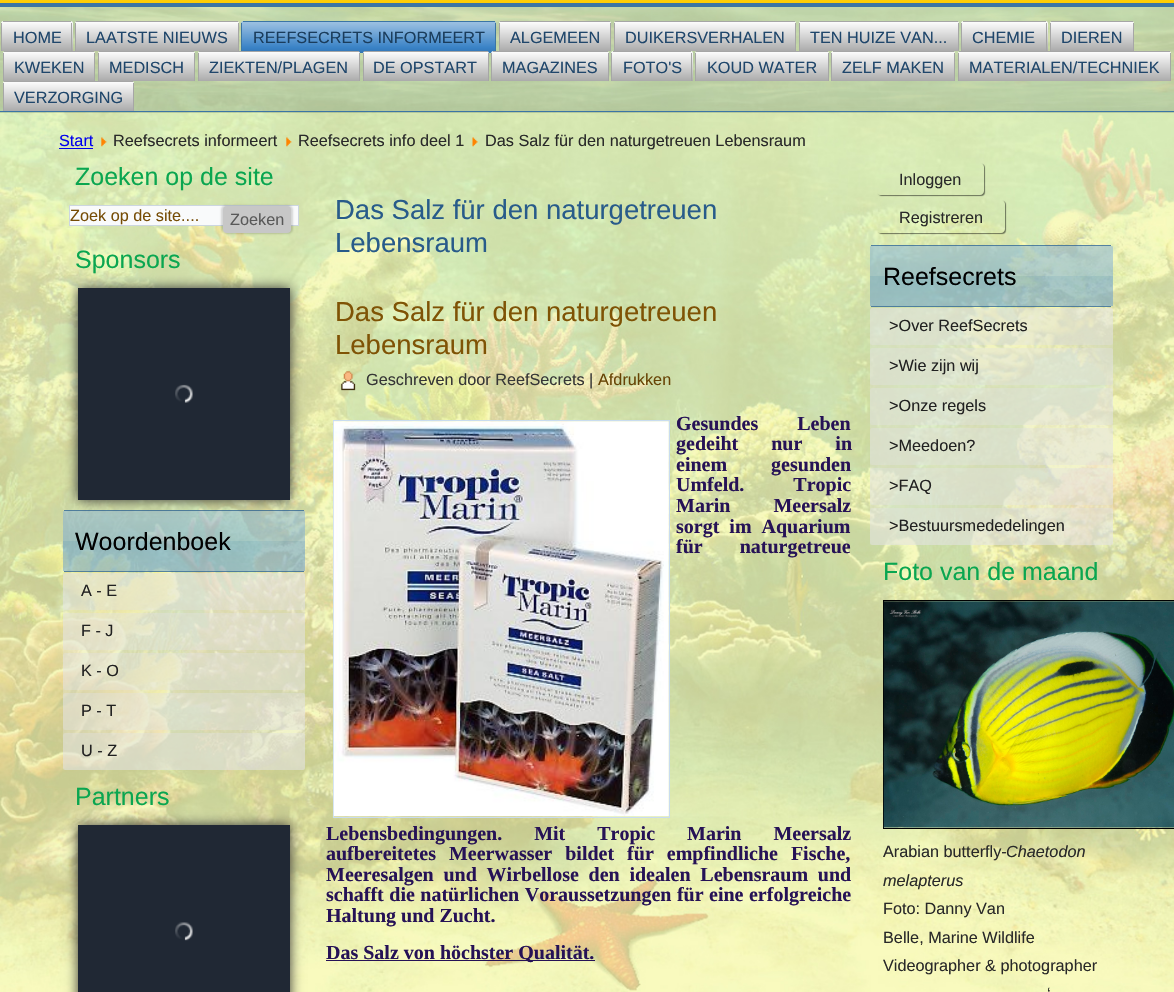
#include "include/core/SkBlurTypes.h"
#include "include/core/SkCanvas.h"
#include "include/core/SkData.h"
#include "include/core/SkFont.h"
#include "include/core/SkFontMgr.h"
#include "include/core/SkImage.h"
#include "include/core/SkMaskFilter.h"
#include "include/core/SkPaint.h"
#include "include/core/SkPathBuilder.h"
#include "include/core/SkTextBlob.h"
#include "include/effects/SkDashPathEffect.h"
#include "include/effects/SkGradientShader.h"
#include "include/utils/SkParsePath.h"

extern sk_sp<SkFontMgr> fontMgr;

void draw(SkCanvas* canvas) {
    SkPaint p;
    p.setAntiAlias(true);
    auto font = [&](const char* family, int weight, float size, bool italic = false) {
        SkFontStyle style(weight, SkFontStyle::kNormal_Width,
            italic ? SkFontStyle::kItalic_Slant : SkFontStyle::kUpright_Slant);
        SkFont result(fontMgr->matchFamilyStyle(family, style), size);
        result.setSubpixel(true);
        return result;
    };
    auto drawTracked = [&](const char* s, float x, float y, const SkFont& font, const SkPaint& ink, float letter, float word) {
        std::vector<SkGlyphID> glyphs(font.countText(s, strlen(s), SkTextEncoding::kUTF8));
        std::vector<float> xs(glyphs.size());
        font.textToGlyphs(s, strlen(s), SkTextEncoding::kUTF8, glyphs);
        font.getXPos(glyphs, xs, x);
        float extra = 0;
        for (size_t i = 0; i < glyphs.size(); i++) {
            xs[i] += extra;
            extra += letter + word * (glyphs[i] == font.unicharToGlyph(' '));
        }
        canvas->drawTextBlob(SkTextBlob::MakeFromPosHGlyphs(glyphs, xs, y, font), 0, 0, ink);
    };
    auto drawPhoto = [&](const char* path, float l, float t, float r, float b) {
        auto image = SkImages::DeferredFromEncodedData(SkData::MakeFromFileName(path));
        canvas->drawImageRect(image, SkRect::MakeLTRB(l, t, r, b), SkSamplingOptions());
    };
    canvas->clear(0xFFFFFFFF);
    drawPhoto("media/1.png", 0, 7, 1174, 992);
    {
        const struct { float l, t, r, b; SkColor color; } items[] = {
            {0, 0, 1174, 3, 0xFFFFCD05},
            {0, 3, 1174, 7, 0xFF3B75A5},
            {0, 111, 1174, 112, 0xFF3B75A5},
        };
        for (auto [l, t, r, b, color] : items) {
            p.setColor(color);
            canvas->drawRect(SkRect::MakeLTRB(l, t, r, b), p);
        }
    }
    {
        const SkColor colors[] = {0xFFFFFFFF, 0xFFABABAB};
        const float stops[] = {0, 1};
        const SkPoint ends[] = {{37, 21}, {37, 51}};
        p.setShader(SkGradientShader::MakeLinear(ends, colors, stops, 2, SkTileMode::kClamp));
        p.setAlpha(255);
    }
    canvas->drawPath(SkPathBuilder().moveTo(3.5f, 21).lineTo(70.5f, 21).cubicTo(72, 21, 73, 22, 73, 23.5f).lineTo(73, 51).lineTo(1, 51).lineTo(1, 23.5f).cubicTo(1, 22, 2, 21, 3.5f, 21).close().detach(), p);
    p.setShader(nullptr);
    {
        const struct { float l, t, r, b; SkColor color; } items[] = {
            {3, 21, 71, 22, 0xFFA6A6A6},
            {71, 23, 72, 51, 0xFFA6A6A6},
            {1, 23, 2, 51, 0xFFA6A6A6},
        };
        for (auto [l, t, r, b, color] : items) {
            p.setColor(color);
            canvas->drawRect(SkRect::MakeLTRB(l, t, r, b), p);
        }
    }
    auto font1 = font("Liberation Sans", 400, 16.25f);
    p.setColor(0xFF1F466B);
    canvas->drawString("HOME", 13, 43, font1, p);
    {
        const SkColor colors[] = {0xFFFFFFFF, 0xFFABABAB};
        const float stops[] = {0, 1};
        const SkPoint ends[] = {{157, 21}, {157, 51}};
        p.setShader(SkGradientShader::MakeLinear(ends, colors, stops, 2, SkTileMode::kClamp));
        p.setAlpha(255);
    }
    canvas->drawPath(SkPathBuilder().moveTo(77.5f, 21).lineTo(236.5f, 21).cubicTo(238, 21, 239, 22, 239, 23.5f).lineTo(239, 51).lineTo(75, 51).lineTo(75, 23.5f).cubicTo(75, 22, 76, 21, 77.5f, 21).close().detach(), p);
    p.setShader(nullptr);
    {
        const struct { float l, t, r, b; SkColor color; } items[] = {
            {76, 21, 238, 22, 0xFFA6A6A6},
            {238, 23, 239, 51, 0xFFA6A6A6},
            {75, 23, 76, 51, 0xFFA6A6A6},
        };
        for (auto [l, t, r, b, color] : items) {
            p.setColor(color);
            canvas->drawRect(SkRect::MakeLTRB(l, t, r, b), p);
        }
    }
    p.setColor(0xFF1F466B);
    canvas->drawString("LAATSTE NIEUWS", 86, 43, font1, p);
    {
        const SkColor colors[] = {0xFFA0C3E3, 0xFF3982C6, 0xFF3475B2};
        const float stops[] = {0, 0.84f, 1};
        const SkPoint ends[] = {{369, 21}, {369, 53}};
        p.setShader(SkGradientShader::MakeLinear(ends, colors, stops, 3, SkTileMode::kClamp));
        p.setAlpha(255);
    }
    canvas->drawPath(SkPathBuilder().moveTo(243.5f, 21).lineTo(493.5f, 21).cubicTo(495, 21, 496, 22, 496, 23.5f).lineTo(496, 53).lineTo(241, 53).lineTo(241, 23.5f).cubicTo(241, 22, 242, 21, 243.5f, 21).close().detach(), p);
    p.setShader(nullptr);
    {
        const struct { float l, t, r, b; SkColor color; } items[] = {
            {243, 21, 495, 22, 0xFF3B75A5},
            {495, 23, 496, 53, 0xFF3B75A5},
            {241, 23, 242, 53, 0xFF3B75A5},
        };
        for (auto [l, t, r, b, color] : items) {
            p.setColor(color);
            canvas->drawRect(SkRect::MakeLTRB(l, t, r, b), p);
        }
    }
    p.setColor(0xFF1A3C5B);
    canvas->drawString("REEFSECRETS INFORMEERT", 253, 43, font1, p);
    {
        const SkColor colors[] = {0xFFFFFFFF, 0xFFABABAB};
        const float stops[] = {0, 1};
        const SkPoint ends[] = {{555, 21}, {555, 51}};
        p.setShader(SkGradientShader::MakeLinear(ends, colors, stops, 2, SkTileMode::kClamp));
        p.setAlpha(255);
    }
    canvas->drawPath(SkPathBuilder().moveTo(501.5f, 21).lineTo(608.5f, 21).cubicTo(610, 21, 611, 22, 611, 23.5f).lineTo(611, 51).lineTo(499, 51).lineTo(499, 23.5f).cubicTo(499, 22, 500, 21, 501.5f, 21).close().detach(), p);
    p.setShader(nullptr);
    {
        const struct { float l, t, r, b; SkColor color; } items[] = {
            {500, 21, 610, 22, 0xFFA6A6A6},
            {610, 23, 611, 51, 0xFFA6A6A6},
            {499, 23, 500, 51, 0xFFA6A6A6},
        };
        for (auto [l, t, r, b, color] : items) {
            p.setColor(color);
            canvas->drawRect(SkRect::MakeLTRB(l, t, r, b), p);
        }
    }
    p.setColor(0xFF1F466B);
    canvas->drawString("ALGEMEEN", 510, 43, font1, p);
    {
        const SkColor colors[] = {0xFFFFFFFF, 0xFFABABAB};
        const float stops[] = {0, 1};
        const SkPoint ends[] = {{705, 21}, {705, 51}};
        p.setShader(SkGradientShader::MakeLinear(ends, colors, stops, 2, SkTileMode::kClamp));
        p.setAlpha(255);
    }
    canvas->drawPath(SkPathBuilder().moveTo(616.5f, 21).lineTo(793.5f, 21).cubicTo(795, 21, 796, 22, 796, 23.5f).lineTo(796, 51).lineTo(614, 51).lineTo(614, 23.5f).cubicTo(614, 22, 615, 21, 616.5f, 21).close().detach(), p);
    p.setShader(nullptr);
    {
        const struct { float l, t, r, b; SkColor color; } items[] = {
            {615, 21, 795, 22, 0xFFA6A6A6},
            {795, 23, 796, 51, 0xFFA6A6A6},
            {614, 23, 615, 51, 0xFFA6A6A6},
        };
        for (auto [l, t, r, b, color] : items) {
            p.setColor(color);
            canvas->drawRect(SkRect::MakeLTRB(l, t, r, b), p);
        }
    }
    p.setColor(0xFF1F466B);
    canvas->drawString("DUIKERSVERHALEN", 625, 43, font1, p);
    {
        const SkColor colors[] = {0xFFFFFFFF, 0xFFABABAB};
        const float stops[] = {0, 1};
        const SkPoint ends[] = {{879, 21}, {879, 51}};
        p.setShader(SkGradientShader::MakeLinear(ends, colors, stops, 2, SkTileMode::kClamp));
        p.setAlpha(255);
    }
    canvas->drawPath(SkPathBuilder().moveTo(801.5f, 21).lineTo(956.5f, 21).cubicTo(958, 21, 959, 22, 959, 23.5f).lineTo(959, 51).lineTo(799, 51).lineTo(799, 23.5f).cubicTo(799, 22, 800, 21, 801.5f, 21).close().detach(), p);
    p.setShader(nullptr);
    {
        const struct { float l, t, r, b; SkColor color; } items[] = {
            {800, 21, 958, 22, 0xFFA6A6A6},
            {958, 23, 959, 51, 0xFFA6A6A6},
            {799, 23, 800, 51, 0xFFA6A6A6},
        };
        for (auto [l, t, r, b, color] : items) {
            p.setColor(color);
            canvas->drawRect(SkRect::MakeLTRB(l, t, r, b), p);
        }
    }
    p.setColor(0xFF1F466B);
    canvas->drawString("TEN HUIZE VAN...", 810, 43, font1, p);
    {
        const SkColor colors[] = {0xFFFFFFFF, 0xFFABABAB};
        const float stops[] = {0, 1};
        const SkPoint ends[] = {{1004, 21}, {1004, 51}};
        p.setShader(SkGradientShader::MakeLinear(ends, colors, stops, 2, SkTileMode::kClamp));
        p.setAlpha(255);
    }
    canvas->drawPath(SkPathBuilder().moveTo(963.5f, 21).lineTo(1045.5f, 21).cubicTo(1047, 21, 1048, 22, 1048, 23.5f).lineTo(1048, 51).lineTo(961, 51).lineTo(961, 23.5f).cubicTo(961, 22, 962, 21, 963.5f, 21).close().detach(), p);
    p.setShader(nullptr);
    {
        const struct { float l, t, r, b; SkColor color; } items[] = {
            {963, 21, 1046, 22, 0xFFA6A6A6},
            {1046, 23, 1047, 51, 0xFFA6A6A6},
            {961, 23, 962, 51, 0xFFA6A6A6},
        };
        for (auto [l, t, r, b, color] : items) {
            p.setColor(color);
            canvas->drawRect(SkRect::MakeLTRB(l, t, r, b), p);
        }
    }
    p.setColor(0xFF1F466B);
    canvas->drawString("CHEMIE", 972, 43, font1, p);
    {
        const SkColor colors[] = {0xFFFFFFFF, 0xFFABABAB};
        const float stops[] = {0, 1};
        const SkPoint ends[] = {{1092, 21}, {1092, 51}};
        p.setShader(SkGradientShader::MakeLinear(ends, colors, stops, 2, SkTileMode::kClamp));
        p.setAlpha(255);
    }
    canvas->drawPath(SkPathBuilder().moveTo(1052.5f, 21).lineTo(1131.5f, 21).cubicTo(1133, 21, 1134, 22, 1134, 23.5f).lineTo(1134, 51).lineTo(1050, 51).lineTo(1050, 23.5f).cubicTo(1050, 22, 1051, 21, 1052.5f, 21).close().detach(), p);
    p.setShader(nullptr);
    {
        const struct { float l, t, r, b; SkColor color; } items[] = {
            {1051, 21, 1133, 22, 0xFFA6A6A6},
            {1133, 23, 1134, 51, 0xFFA6A6A6},
            {1050, 23, 1051, 51, 0xFFA6A6A6},
        };
        for (auto [l, t, r, b, color] : items) {
            p.setColor(color);
            canvas->drawRect(SkRect::MakeLTRB(l, t, r, b), p);
        }
    }
    p.setColor(0xFF1F466B);
    canvas->drawString("DIEREN", 1061, 43, font1, p);
    {
        const SkColor colors[] = {0xFFFFFFFF, 0xFFABABAB};
        const float stops[] = {0, 1};
        const SkPoint ends[] = {{49, 51}, {49, 81}};
        p.setShader(SkGradientShader::MakeLinear(ends, colors, stops, 2, SkTileMode::kClamp));
        p.setAlpha(255);
    }
    canvas->drawPath(SkPathBuilder().moveTo(5.5f, 51).lineTo(92.5f, 51).cubicTo(94, 51, 95, 52, 95, 53.5f).lineTo(95, 81).lineTo(3, 81).lineTo(3, 53.5f).cubicTo(3, 52, 4, 51, 5.5f, 51).close().detach(), p);
    p.setShader(nullptr);
    {
        const struct { float l, t, r, b; SkColor color; } items[] = {
            {4, 51, 94, 52, 0xFFA6A6A6},
            {94, 53, 95, 81, 0xFFA6A6A6},
            {3, 53, 4, 81, 0xFFA6A6A6},
        };
        for (auto [l, t, r, b, color] : items) {
            p.setColor(color);
            canvas->drawRect(SkRect::MakeLTRB(l, t, r, b), p);
        }
    }
    p.setColor(0xFF1F466B);
    canvas->drawString("KWEKEN", 14, 73, font1, p);
    {
        const SkColor colors[] = {0xFFFFFFFF, 0xFFABABAB};
        const float stops[] = {0, 1};
        const SkPoint ends[] = {{146, 51}, {146, 81}};
        p.setShader(SkGradientShader::MakeLinear(ends, colors, stops, 2, SkTileMode::kClamp));
        p.setAlpha(255);
    }
    canvas->drawPath(SkPathBuilder().moveTo(100.5f, 51).lineTo(192.5f, 51).cubicTo(194, 51, 195, 52, 195, 53.5f).lineTo(195, 81).lineTo(98, 81).lineTo(98, 53.5f).cubicTo(98, 52, 99, 51, 100.5f, 51).close().detach(), p);
    p.setShader(nullptr);
    {
        const struct { float l, t, r, b; SkColor color; } items[] = {
            {99, 51, 194, 52, 0xFFA6A6A6},
            {194, 53, 195, 81, 0xFFA6A6A6},
            {98, 53, 99, 81, 0xFFA6A6A6},
        };
        for (auto [l, t, r, b, color] : items) {
            p.setColor(color);
            canvas->drawRect(SkRect::MakeLTRB(l, t, r, b), p);
        }
    }
    p.setColor(0xFF1F466B);
    canvas->drawString("MEDISCH", 109, 73, font1, p);
    {
        const SkColor colors[] = {0xFFFFFFFF, 0xFFABABAB};
        const float stops[] = {0, 1};
        const SkPoint ends[] = {{279, 51}, {279, 81}};
        p.setShader(SkGradientShader::MakeLinear(ends, colors, stops, 2, SkTileMode::kClamp));
        p.setAlpha(255);
    }
    canvas->drawPath(SkPathBuilder().moveTo(200.5f, 51).lineTo(357.5f, 51).cubicTo(359, 51, 360, 52, 360, 53.5f).lineTo(360, 81).lineTo(198, 81).lineTo(198, 53.5f).cubicTo(198, 52, 199, 51, 200.5f, 51).close().detach(), p);
    p.setShader(nullptr);
    {
        const struct { float l, t, r, b; SkColor color; } items[] = {
            {199, 51, 359, 52, 0xFFA6A6A6},
            {359, 53, 360, 81, 0xFFA6A6A6},
            {198, 53, 199, 81, 0xFFA6A6A6},
        };
        for (auto [l, t, r, b, color] : items) {
            p.setColor(color);
            canvas->drawRect(SkRect::MakeLTRB(l, t, r, b), p);
        }
    }
    p.setColor(0xFF1F466B);
    canvas->drawString("ZIEKTEN/PLAGEN", 209, 73, font1, p);
    {
        const SkColor colors[] = {0xFFFFFFFF, 0xFFABABAB};
        const float stops[] = {0, 1};
        const SkPoint ends[] = {{426, 51}, {426, 81}};
        p.setShader(SkGradientShader::MakeLinear(ends, colors, stops, 2, SkTileMode::kClamp));
        p.setAlpha(255);
    }
    canvas->drawPath(SkPathBuilder().moveTo(365.5f, 51).lineTo(486.5f, 51).cubicTo(488, 51, 489, 52, 489, 53.5f).lineTo(489, 81).lineTo(363, 81).lineTo(363, 53.5f).cubicTo(363, 52, 364, 51, 365.5f, 51).close().detach(), p);
    p.setShader(nullptr);
    {
        const struct { float l, t, r, b; SkColor color; } items[] = {
            {364, 51, 488, 52, 0xFFA6A6A6},
            {488, 53, 489, 81, 0xFFA6A6A6},
            {363, 53, 364, 81, 0xFFA6A6A6},
        };
        for (auto [l, t, r, b, color] : items) {
            p.setColor(color);
            canvas->drawRect(SkRect::MakeLTRB(l, t, r, b), p);
        }
    }
    p.setColor(0xFF1F466B);
    canvas->drawString("DE OPSTART", 373, 73, font1, p);
    {
        const SkColor colors[] = {0xFFFFFFFF, 0xFFABABAB};
        const float stops[] = {0, 1};
        const SkPoint ends[] = {{550, 51}, {550, 81}};
        p.setShader(SkGradientShader::MakeLinear(ends, colors, stops, 2, SkTileMode::kClamp));
        p.setAlpha(255);
    }
    canvas->drawPath(SkPathBuilder().moveTo(493.5f, 51).lineTo(606.5f, 51).cubicTo(608, 51, 609, 52, 609, 53.5f).lineTo(609, 81).lineTo(491, 81).lineTo(491, 53.5f).cubicTo(491, 52, 492, 51, 493.5f, 51).close().detach(), p);
    p.setShader(nullptr);
    {
        const struct { float l, t, r, b; SkColor color; } items[] = {
            {493, 51, 608, 52, 0xFFA6A6A6},
            {608, 53, 609, 81, 0xFFA6A6A6},
            {491, 53, 492, 81, 0xFFA6A6A6},
        };
        for (auto [l, t, r, b, color] : items) {
            p.setColor(color);
            canvas->drawRect(SkRect::MakeLTRB(l, t, r, b), p);
        }
    }
    p.setColor(0xFF1F466B);
    canvas->drawString("MAGAZINES", 502, 73, font1, p);
    {
        const SkColor colors[] = {0xFFFFFFFF, 0xFFABABAB};
        const float stops[] = {0, 1};
        const SkPoint ends[] = {{652, 51}, {652, 81}};
        p.setShader(SkGradientShader::MakeLinear(ends, colors, stops, 2, SkTileMode::kClamp));
        p.setAlpha(255);
    }
    canvas->drawPath(SkPathBuilder().moveTo(613.5f, 51).lineTo(690.5f, 51).cubicTo(692, 51, 693, 52, 693, 53.5f).lineTo(693, 81).lineTo(611, 81).lineTo(611, 53.5f).cubicTo(611, 52, 612, 51, 613.5f, 51).close().detach(), p);
    p.setShader(nullptr);
    {
        const struct { float l, t, r, b; SkColor color; } items[] = {
            {613, 51, 691, 52, 0xFFA6A6A6},
            {691, 53, 692, 81, 0xFFA6A6A6},
            {611, 53, 612, 81, 0xFFA6A6A6},
        };
        for (auto [l, t, r, b, color] : items) {
            p.setColor(color);
            canvas->drawRect(SkRect::MakeLTRB(l, t, r, b), p);
        }
    }
    p.setColor(0xFF1F466B);
    canvas->drawString("FOTO'S", 623, 73, font1, p);
    {
        const SkColor colors[] = {0xFFFFFFFF, 0xFFABABAB};
        const float stops[] = {0, 1};
        const SkPoint ends[] = {{762, 51}, {762, 81}};
        p.setShader(SkGradientShader::MakeLinear(ends, colors, stops, 2, SkTileMode::kClamp));
        p.setAlpha(255);
    }
    canvas->drawPath(SkPathBuilder().moveTo(697.5f, 51).lineTo(826.5f, 51).cubicTo(828, 51, 829, 52, 829, 53.5f).lineTo(829, 81).lineTo(695, 81).lineTo(695, 53.5f).cubicTo(695, 52, 696, 51, 697.5f, 51).close().detach(), p);
    p.setShader(nullptr);
    {
        const struct { float l, t, r, b; SkColor color; } items[] = {
            {696, 51, 828, 52, 0xFFA6A6A6},
            {828, 53, 829, 81, 0xFFA6A6A6},
            {695, 53, 696, 81, 0xFFA6A6A6},
        };
        for (auto [l, t, r, b, color] : items) {
            p.setColor(color);
            canvas->drawRect(SkRect::MakeLTRB(l, t, r, b), p);
        }
    }
    p.setColor(0xFF1F466B);
    canvas->drawString("KOUD WATER", 707, 73, font1, p);
    {
        const SkColor colors[] = {0xFFFFFFFF, 0xFFABABAB};
        const float stops[] = {0, 1};
        const SkPoint ends[] = {{893, 51}, {893, 81}};
        p.setShader(SkGradientShader::MakeLinear(ends, colors, stops, 2, SkTileMode::kClamp));
        p.setAlpha(255);
    }
    canvas->drawPath(SkPathBuilder().moveTo(833.5f, 51).lineTo(952.5f, 51).cubicTo(954, 51, 955, 52, 955, 53.5f).lineTo(955, 81).lineTo(831, 81).lineTo(831, 53.5f).cubicTo(831, 52, 832, 51, 833.5f, 51).close().detach(), p);
    p.setShader(nullptr);
    {
        const struct { float l, t, r, b; SkColor color; } items[] = {
            {833, 51, 954, 52, 0xFFA6A6A6},
            {954, 53, 955, 81, 0xFFA6A6A6},
            {831, 53, 832, 81, 0xFFA6A6A6},
        };
        for (auto [l, t, r, b, color] : items) {
            p.setColor(color);
            canvas->drawRect(SkRect::MakeLTRB(l, t, r, b), p);
        }
    }
    p.setColor(0xFF1F466B);
    canvas->drawString("ZELF MAKEN", 842, 73, font1, p);
    {
        const SkColor colors[] = {0xFFFFFFFF, 0xFFABABAB};
        const float stops[] = {0, 1};
        const SkPoint ends[] = {{1064, 51}, {1064, 81}};
        p.setShader(SkGradientShader::MakeLinear(ends, colors, stops, 2, SkTileMode::kClamp));
        p.setAlpha(255);
    }
    canvas->drawPath(SkPathBuilder().moveTo(960.5f, 51).lineTo(1168.5f, 51).cubicTo(1170, 51, 1171, 52, 1171, 53.5f).lineTo(1171, 81).lineTo(958, 81).lineTo(958, 53.5f).cubicTo(958, 52, 959, 51, 960.5f, 51).close().detach(), p);
    p.setShader(nullptr);
    {
        const struct { float l, t, r, b; SkColor color; } items[] = {
            {959, 51, 1170, 52, 0xFFA6A6A6},
            {1170, 53, 1171, 81, 0xFFA6A6A6},
            {958, 53, 959, 81, 0xFFA6A6A6},
        };
        for (auto [l, t, r, b, color] : items) {
            p.setColor(color);
            canvas->drawRect(SkRect::MakeLTRB(l, t, r, b), p);
        }
    }
    p.setColor(0xFF1F466B);
    canvas->drawString("MATERIALEN/TECHNIEK", 969, 73, font1, p);
    {
        const SkColor colors[] = {0xFFFFFFFF, 0xFFABABAB};
        const float stops[] = {0, 1};
        const SkPoint ends[] = {{68, 81}, {68, 111}};
        p.setShader(SkGradientShader::MakeLinear(ends, colors, stops, 2, SkTileMode::kClamp));
        p.setAlpha(255);
    }
    canvas->drawPath(SkPathBuilder().moveTo(5.5f, 81).lineTo(131.5f, 81).cubicTo(133, 81, 134, 82, 134, 83.5f).lineTo(134, 111).lineTo(3, 111).lineTo(3, 83.5f).cubicTo(3, 82, 4, 81, 5.5f, 81).close().detach(), p);
    p.setShader(nullptr);
    {
        const struct { float l, t, r, b; SkColor color; } items[] = {
            {4, 81, 133, 82, 0xFFA6A6A6},
            {133, 83, 134, 111, 0xFFA6A6A6},
            {3, 83, 4, 111, 0xFFA6A6A6},
        };
        for (auto [l, t, r, b, color] : items) {
            p.setColor(color);
            canvas->drawRect(SkRect::MakeLTRB(l, t, r, b), p);
        }
    }
    p.setColor(0xFF1F466B);
    canvas->drawString("VERZORGING", 14, 103, font1, p);
    p.setColor(0xFF0000EE);
    canvas->drawString("Start", 59, 146, font1, p);
    canvas->drawRect(SkRect::MakeLTRB(59, 148, 93, 149), p);
    drawPhoto("media/2.png", 101, 137, 107, 147);
    p.setColor(0xFF292929);
    canvas->drawString("Reefsecrets informeert", 113, 146, font1, p);
    drawPhoto("media/3.png", 286, 137, 292, 147);
    canvas->drawString("Reefsecrets info deel 1", 298, 146, font1, p);
    drawPhoto("media/4.png", 472, 137, 478, 147);
    canvas->drawString("Das Salz für den naturgetreuen Lebensraum", 485, 146, font1, p);
    auto font2 = font("Liberation Sans", 400, 25);
    p.setColor(0xFF0AA650);
    canvas->drawString("Zoeken op de site", 75, 185, font2, p);
    p.setColor(0xFFF9FAFB);
    canvas->drawRect(SkRect::MakeLTRB(69.5f, 205.5f, 298.5f, 225.5f), p);
    p.setStyle(SkPaint::kStroke_Style);
    p.setStrokeWidth(1);
    p.setColor(0xFFCCD6E0);
    canvas->drawRect(SkRect::MakeLTRB(69.5f, 205.5f, 298.5f, 225.5f), p);
    p.setStyle(SkPaint::kFill_Style);
    p.setColor(0xFF764C05);
    canvas->drawString("Zoek op de site....", 70, 221, font1, p);
    p.setColor(0x26000000);
    p.setMaskFilter(SkMaskFilter::MakeBlur(kNormal_SkBlurStyle, 1));
    canvas->drawRoundRect(SkRect::MakeLTRB(221, 205, 293, 234), 5, 5, p);
    p.setMaskFilter(nullptr);
    p.setColor(0xFFC7C7C7);
    canvas->drawRoundRect(SkRect::MakeLTRB(223, 206, 291, 233), 4, 4, p);
    p.setColor(0xFF595959);
    canvas->drawString("Zoeken", 230, 225, font1, p);
    p.setColor(0xFF0AA650);
    canvas->drawString("Sponsors", 75, 268, font2, p);
    p.setColor(0xCC2D659A);
    canvas->drawRect(SkRect::MakeLTRB(64, 510, 304, 511), p);
    p.setColor(0xFF333333);
    p.setMaskFilter(SkMaskFilter::MakeBlur(kNormal_SkBlurStyle, 6));
    canvas->drawRect(SkRect::MakeLTRB(78, 288, 290, 500), p);
    p.setMaskFilter(nullptr);
    p.setColor(0xFF202834);
    canvas->drawRect(SkRect::MakeLTRB(78, 288, 290, 500), p);
    drawPhoto("media/5.png", 175, 384, 193, 403);
    p.setColor(0xCC2D659A);
    canvas->drawRect(SkRect::MakeLTRB(64, 571, 304, 572), p);
    p.setColor(0xFF000000);
    canvas->drawString("Woordenboek", 75, 550, font2, p);
    p.setColor(0x4DE7E9E9);
    canvas->drawRoundRect(SkRect::MakeLTRB(63, 573, 305, 770), 2.5f, 2.5f, p);
    p.setColor(0x66E0E0E0);
    canvas->drawRoundRect(SkRect::MakeLTRB(63, 573, 305, 610), 2.5f, 2.5f, p);
    p.setColor(0xFF212121);
    canvas->drawString("A - E", 81, 596, font1, p);
    p.setColor(0x66E0E0E0);
    canvas->drawRoundRect(SkRect::MakeLTRB(63, 613, 305, 650), 2.5f, 2.5f, p);
    p.setColor(0xFF212121);
    canvas->drawString("F - J", 81, 636, font1, p);
    p.setColor(0x66E0E0E0);
    canvas->drawRoundRect(SkRect::MakeLTRB(63, 653, 305, 690), 2.5f, 2.5f, p);
    p.setColor(0xFF212121);
    canvas->drawString("K - O", 81, 676, font1, p);
    p.setColor(0x66E0E0E0);
    canvas->drawRoundRect(SkRect::MakeLTRB(63, 693, 305, 730), 2.5f, 2.5f, p);
    p.setColor(0xFF212121);
    canvas->drawString("P - T", 81, 716, font1, p);
    p.setColor(0x66E0E0E0);
    canvas->drawRoundRect(SkRect::MakeLTRB(63, 733, 305, 770), 2.5f, 2.5f, p);
    p.setColor(0xFF212121);
    canvas->drawString("U - Z", 81, 756, font1, p);
    p.setColor(0xFF0AA650);
    canvas->drawString("Partners", 75, 805, font2, p);
    p.setColor(0xFF333333);
    p.setMaskFilter(SkMaskFilter::MakeBlur(kNormal_SkBlurStyle, 6));
    canvas->drawRect(SkRect::MakeLTRB(78, 825, 290, 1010), p);
    p.setMaskFilter(nullptr);
    p.setColor(0xFF202834);
    canvas->drawRect(SkRect::MakeLTRB(78, 825, 290, 992), p);
    drawPhoto("media/6.png", 175, 922, 193, 941);
    auto font3 = font("Liberation Sans", 400, 27.5f);
    p.setColor(0xFF285B8A);
    canvas->drawString("Das Salz für den naturgetreuen", 335, 219, font3, p);
    canvas->drawString("Lebensraum", 335, 252, font3, p);
    p.setColor(0xFF7F5305);
    canvas->drawString("Das Salz für den naturgetreuen", 335, 321, font3, p);
    canvas->drawString("Lebensraum", 335, 354, font3, p);
    drawPhoto("media/7.png", 341, 371, 356, 391);
    p.setColor(0xFF363636);
    canvas->drawString("Geschreven door ReefSecrets |", 366, 385, font1, p);
    p.setColor(0xFF674304);
    canvas->drawString("Afdrukken", 598, 385, font1, p);
    p.setStyle(SkPaint::kStroke_Style);
    p.setColor(0xFFC8DCEF);
    canvas->drawRect(SkRect::MakeLTRB(333.5f, 420.5f, 669.5f, 817.5f), p);
    drawPhoto("media/8.png", 333, 421, 669, 817);
    auto font4 = font("Liberation Serif", 700, 20);
    p.setStyle(SkPaint::kFill_Style);
    p.setColor(0xFF261256);
    drawTracked("Gesundes Leben", 676, 430, font4, p, 0, 34);
    drawTracked("gedeiht nur in", 676, 450, font4, p, 0, 28);
    drawTracked("einem gesunden", 676, 471, font4, p, 0, 39);
    drawTracked("Umfeld. Tropic", 676, 491, font4, p, 0, 44);
    drawTracked("Marin Meersalz", 676, 512, font4, p, 0, 38);
    drawTracked("sorgt im Aquarium", 676, 533, font4, p, 0, 5);
    drawTracked("für naturgetreue", 676, 553, font4, p, 0, 32);
    drawTracked("Lebensbedingungen. Mit Tropic Marin Meersalz", 326, 840, font4, p, 0, 27);
    drawTracked("aufbereitetes Meerwasser bildet für empfindliche Fische,", 326, 860, font4, p, 0, 8);
    drawTracked("Meeresalgen und Wirbellose den idealen Lebensraum und", 326, 881, font4, p, 0, 4.75f);
    drawTracked("schafft die natürlichen Voraussetzungen für eine erfolgreiche", 326, 901, font4, p, 0, 0.5f);
    canvas->drawString("Haltung und Zucht.", 326, 922, font4, p);
    canvas->drawRect(SkRect::MakeLTRB(326, 960, 595, 961), p);
    canvas->drawString("Das Salz von höchster Qualität.", 326, 959, font4, p);
    canvas->save();
    canvas->clipPath(SkPathBuilder(SkPathFillType::kEvenOdd).moveTo(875, 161).lineTo(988, 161).lineTo(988, 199).lineTo(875, 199).close().moveTo(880, 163).lineTo(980, 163).cubicTo(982, 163, 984, 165, 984, 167).lineTo(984, 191).cubicTo(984, 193, 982, 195, 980, 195).lineTo(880, 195).cubicTo(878, 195, 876, 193, 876, 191).lineTo(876, 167).cubicTo(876, 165, 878, 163, 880, 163).close().detach(), true);
    p.setColor(0x80000000);
    p.setMaskFilter(SkMaskFilter::MakeBlur(kNormal_SkBlurStyle, 0.5f));
    canvas->drawRoundRect(SkRect::MakeLTRB(878, 164, 985, 196), 4, 4, p);
    p.setMaskFilter(nullptr);
    canvas->restore();
    p.setColor(0xFF292929);
    canvas->drawString("Inloggen", 899, 185, font1, p);
    canvas->save();
    canvas->clipPath(SkPathBuilder(SkPathFillType::kEvenOdd).moveTo(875, 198).lineTo(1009, 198).lineTo(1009, 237).lineTo(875, 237).close().moveTo(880, 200).lineTo(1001, 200).cubicTo(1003, 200, 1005, 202, 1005, 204).lineTo(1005, 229).cubicTo(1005, 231, 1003, 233, 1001, 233).lineTo(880, 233).cubicTo(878, 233, 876, 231, 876, 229).lineTo(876, 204).cubicTo(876, 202, 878, 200, 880, 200).close().detach(), true);
    p.setColor(0x80000000);
    p.setMaskFilter(SkMaskFilter::MakeBlur(kNormal_SkBlurStyle, 0.5f));
    canvas->drawRoundRect(SkRect::MakeLTRB(878, 201, 1006, 234), 4, 4, p);
    p.setMaskFilter(nullptr);
    canvas->restore();
    p.setColor(0xFF292929);
    canvas->drawString("Registreren", 899, 223, font1, p);
    p.setColor(0xCC2D659A);
    canvas->drawRect(SkRect::MakeLTRB(871, 245, 1111, 246), p);
    canvas->drawRect(SkRect::MakeLTRB(871, 306, 1111, 307), p);
    p.setColor(0xFF000000);
    canvas->drawString("Reefsecrets", 883, 285, font2, p);
    p.setColor(0x4DE7E9E9);
    canvas->drawRoundRect(SkRect::MakeLTRB(870, 308, 1113, 545), 2.5f, 2.5f, p);
    p.setColor(0x66E0E0E0);
    canvas->drawRoundRect(SkRect::MakeLTRB(870, 308, 1113, 345), 2.5f, 2.5f, p);
    p.setColor(0xFF212121);
    canvas->drawString(">Over ReefSecrets", 889, 331, font1, p);
    p.setColor(0x66E0E0E0);
    canvas->drawRoundRect(SkRect::MakeLTRB(870, 348, 1113, 385), 2.5f, 2.5f, p);
    p.setColor(0xFF212121);
    canvas->drawString(">Wie zijn wij", 889, 371, font1, p);
    p.setColor(0x66E0E0E0);
    canvas->drawRoundRect(SkRect::MakeLTRB(870, 388, 1113, 425), 2.5f, 2.5f, p);
    p.setColor(0xFF212121);
    canvas->drawString(">Onze regels", 889, 411, font1, p);
    p.setColor(0x66E0E0E0);
    canvas->drawRoundRect(SkRect::MakeLTRB(870, 428, 1113, 465), 2.5f, 2.5f, p);
    p.setColor(0xFF212121);
    canvas->drawString(">Meedoen?", 889, 451, font1, p);
    p.setColor(0x66E0E0E0);
    canvas->drawRoundRect(SkRect::MakeLTRB(870, 468, 1113, 505), 2.5f, 2.5f, p);
    p.setColor(0xFF212121);
    canvas->drawString(">FAQ", 889, 491, font1, p);
    p.setColor(0x66E0E0E0);
    canvas->drawRoundRect(SkRect::MakeLTRB(870, 508, 1113, 545), 2.5f, 2.5f, p);
    p.setColor(0xFF212121);
    canvas->drawString(">Bestuursmededelingen", 889, 531, font1, p);
    p.setColor(0xFF0AA650);
    canvas->drawString("Foto van de maand", 883, 580, font2, p);
    p.setStyle(SkPaint::kStroke_Style);
    p.setColor(0xFF000000);
    canvas->drawRect(SkRect::MakeLTRB(883.5f, 600.5f, 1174.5f, 828.5f), p);
    drawPhoto("media/9.png", 883, 601, 1174, 828);
    p.setStyle(SkPaint::kFill_Style);
    p.setColor(0xFF292929);
    canvas->drawString("Arabian butterfly-", 883, 857, font1, p);
    auto font5 = font("Liberation Sans", 400, 16.25f, true);
    canvas->drawString("Chaetodon", 1006, 857, font5, p);
    canvas->drawString("melapterus", 883, 886, font5, p);
    {
        const struct { const char* s; float x, y; } items[] = {
            {"Foto: Danny Van", 883, 914},
            {"Belle, Marine Wildlife", 883, 943},
            {"Videographer & photographer", 883, 971},
            {"‘", 1047, 999},
        };
        for (auto [s, x, y] : items) {
            canvas->drawString(s, x, y, font1, p);
        }
    }
}
